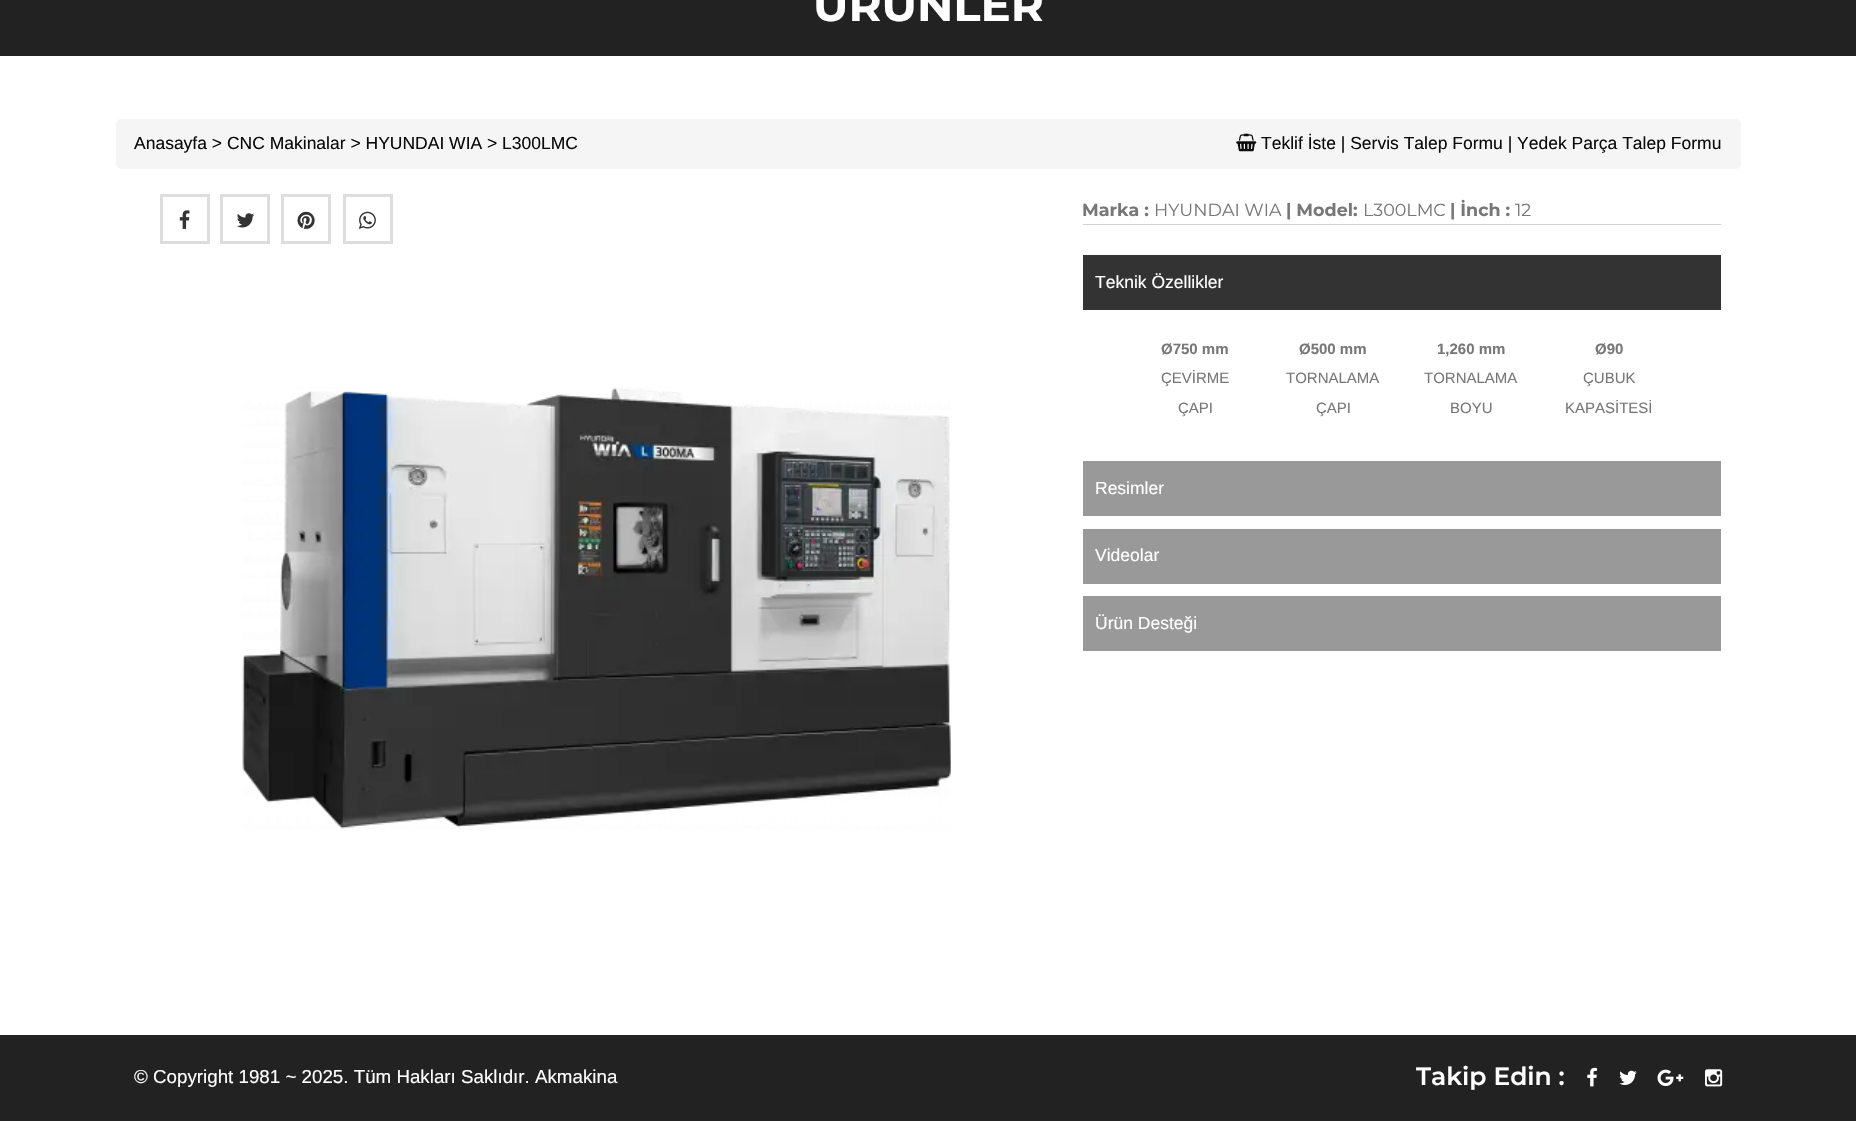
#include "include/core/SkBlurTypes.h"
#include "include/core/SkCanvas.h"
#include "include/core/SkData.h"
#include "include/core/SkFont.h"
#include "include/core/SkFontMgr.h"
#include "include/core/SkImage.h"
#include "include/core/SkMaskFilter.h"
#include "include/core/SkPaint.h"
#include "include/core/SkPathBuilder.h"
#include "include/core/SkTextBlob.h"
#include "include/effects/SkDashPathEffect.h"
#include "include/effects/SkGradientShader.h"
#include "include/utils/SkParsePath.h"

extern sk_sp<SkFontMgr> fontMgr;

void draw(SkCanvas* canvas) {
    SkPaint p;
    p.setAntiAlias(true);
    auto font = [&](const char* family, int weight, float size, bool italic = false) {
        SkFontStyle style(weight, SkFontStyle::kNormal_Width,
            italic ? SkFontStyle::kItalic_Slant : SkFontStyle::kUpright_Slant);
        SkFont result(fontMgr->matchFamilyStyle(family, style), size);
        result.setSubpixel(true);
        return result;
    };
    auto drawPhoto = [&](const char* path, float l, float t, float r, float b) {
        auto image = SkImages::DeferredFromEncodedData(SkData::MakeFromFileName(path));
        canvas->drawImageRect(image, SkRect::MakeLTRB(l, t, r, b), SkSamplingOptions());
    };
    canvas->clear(0xFFFFFFFF);
    p.setColor(0xFF222222);
    canvas->drawRect(SkRect::MakeLTRB(0, 0, 1856, 56), p);
    auto font1 = font("Montserrat", 700, 45);
    p.setColor(0xFFFFFFFF);
    canvas->drawString("ÜRÜNLER", 813, 21, font1, p);
    p.setColor(0xFFF5F5F5);
    canvas->drawRoundRect(SkRect::MakeLTRB(116, 119, 1741, 169), 5, 5, p);
    auto font2 = font("Arimo", 400, 17.5f);
    p.setColor(0xFF0A0A0A);
    canvas->drawString("Anasayfa > CNC Makinalar > HYUNDAI WIA > L300LMC", 134, 149, font2, p);
    drawPhoto("media/1.png", 1236, 133, 1257, 152);
    canvas->drawString("Teklif İste | Servis Talep Formu | Yedek Parça Talep Formu", 1261, 149, font2, p);
    p.setStyle(SkPaint::kStroke_Style);
    p.setStrokeWidth(3);
    p.setColor(0xFFDDDDDD);
    canvas->drawRect(SkRect::MakeLTRB(161.5f, 195.5f, 208.5f, 242.5f), p);
    drawPhoto("media/2.png", 179, 210, 190, 229);
    canvas->drawRect(SkRect::MakeLTRB(221.5f, 195.5f, 268.5f, 242.5f), p);
    drawPhoto("media/3.png", 236, 213, 255, 228);
    canvas->drawRect(SkRect::MakeLTRB(282.5f, 195.5f, 329.5f, 242.5f), p);
    drawPhoto("media/4.png", 297, 211, 315, 229);
    canvas->drawRect(SkRect::MakeLTRB(344.5f, 195.5f, 391.5f, 242.5f), p);
    drawPhoto("media/5.png", 358, 211, 376, 229);
    drawPhoto("media/6.png", 242, 387, 951, 829);
    p.setStyle(SkPaint::kFill_Style);
    p.setColor(0xFFD3D3D3);
    canvas->drawRect(SkRect::MakeLTRB(1083, 224, 1721, 225), p);
    auto font3 = font("Montserrat", 700, 17.5f);
    p.setColor(0xFF777777);
    canvas->drawString("Marka :", 1082, 216, font3, p);
    auto font4 = font("Montserrat", 400, 17.5f);
    canvas->drawString("HYUNDAI WIA", 1154, 216, font4, p);
    canvas->drawString("| Model:", 1286, 216, font3, p);
    canvas->drawString("L300LMC", 1363, 216, font4, p);
    canvas->drawString("| İnch :", 1450, 216, font3, p);
    canvas->drawString("12", 1515, 216, font4, p);
    p.setColor(0xFF333333);
    canvas->drawRect(SkRect::MakeLTRB(1083, 255, 1721, 310), p);
    p.setColor(0xFFFFFFFF);
    canvas->drawString("Teknik Özellikler", 1095, 288, font2, p);
    auto font5 = font("Arimo", 700, 15);
    p.setColor(0xFF777777);
    canvas->drawString("Ø750 mm", 1161, 354, font5, p);
    auto font6 = font("Arimo", 400, 15);
    canvas->drawString("ÇEVİRME", 1161, 383, font6, p);
    canvas->drawString("ÇAPI", 1178, 413, font6, p);
    canvas->drawString("Ø500 mm", 1299, 354, font5, p);
    canvas->drawString("TORNALAMA", 1286, 383, font6, p);
    canvas->drawString("ÇAPI", 1316, 413, font6, p);
    canvas->drawString("1,260 mm", 1437, 354, font5, p);
    canvas->drawString("TORNALAMA", 1424, 383, font6, p);
    canvas->drawString("BOYU", 1450, 413, font6, p);
    canvas->drawString("Ø90", 1595, 354, font5, p);
    canvas->drawString("ÇUBUK", 1583, 383, font6, p);
    canvas->drawString("KAPASİTESİ", 1565, 413, font6, p);
    p.setColor(0xFF999999);
    canvas->drawRect(SkRect::MakeLTRB(1083, 461, 1721, 516), p);
    p.setColor(0xFFFFFFFF);
    canvas->drawString("Resimler", 1095, 494, font2, p);
    p.setColor(0xFF999999);
    canvas->drawRect(SkRect::MakeLTRB(1083, 529, 1721, 584), p);
    p.setColor(0xFFFFFFFF);
    canvas->drawString("Videolar", 1095, 561, font2, p);
    p.setColor(0xFF999999);
    canvas->drawRect(SkRect::MakeLTRB(1083, 596, 1721, 651), p);
    p.setColor(0xFFFFFFFF);
    canvas->drawString("Ürün Desteği", 1095, 629, font2, p);
    p.setColor(0xFF222222);
    canvas->drawRect(SkRect::MakeLTRB(0, 1035, 1856, 1121), p);
    auto font7 = font("Arimo", 400, 18.75f);
    p.setColor(0xFFFFFFFF);
    canvas->drawString("© Copyright 1981 ~ 2025. Tüm Hakları Saklıdır. Akmakina", 134, 1083, font7, p);
    auto font8 = font("Montserrat", 600, 25);
    canvas->drawString("Takip Edin :", 1416, 1085, font8, p);
    drawPhoto("media/7.png", 1587, 1067, 1597, 1087);
    drawPhoto("media/8.png", 1619, 1070, 1637, 1085);
    drawPhoto("media/9.png", 1657, 1069, 1684, 1086);
    drawPhoto("media/10.png", 1705, 1069, 1723, 1087);
}
